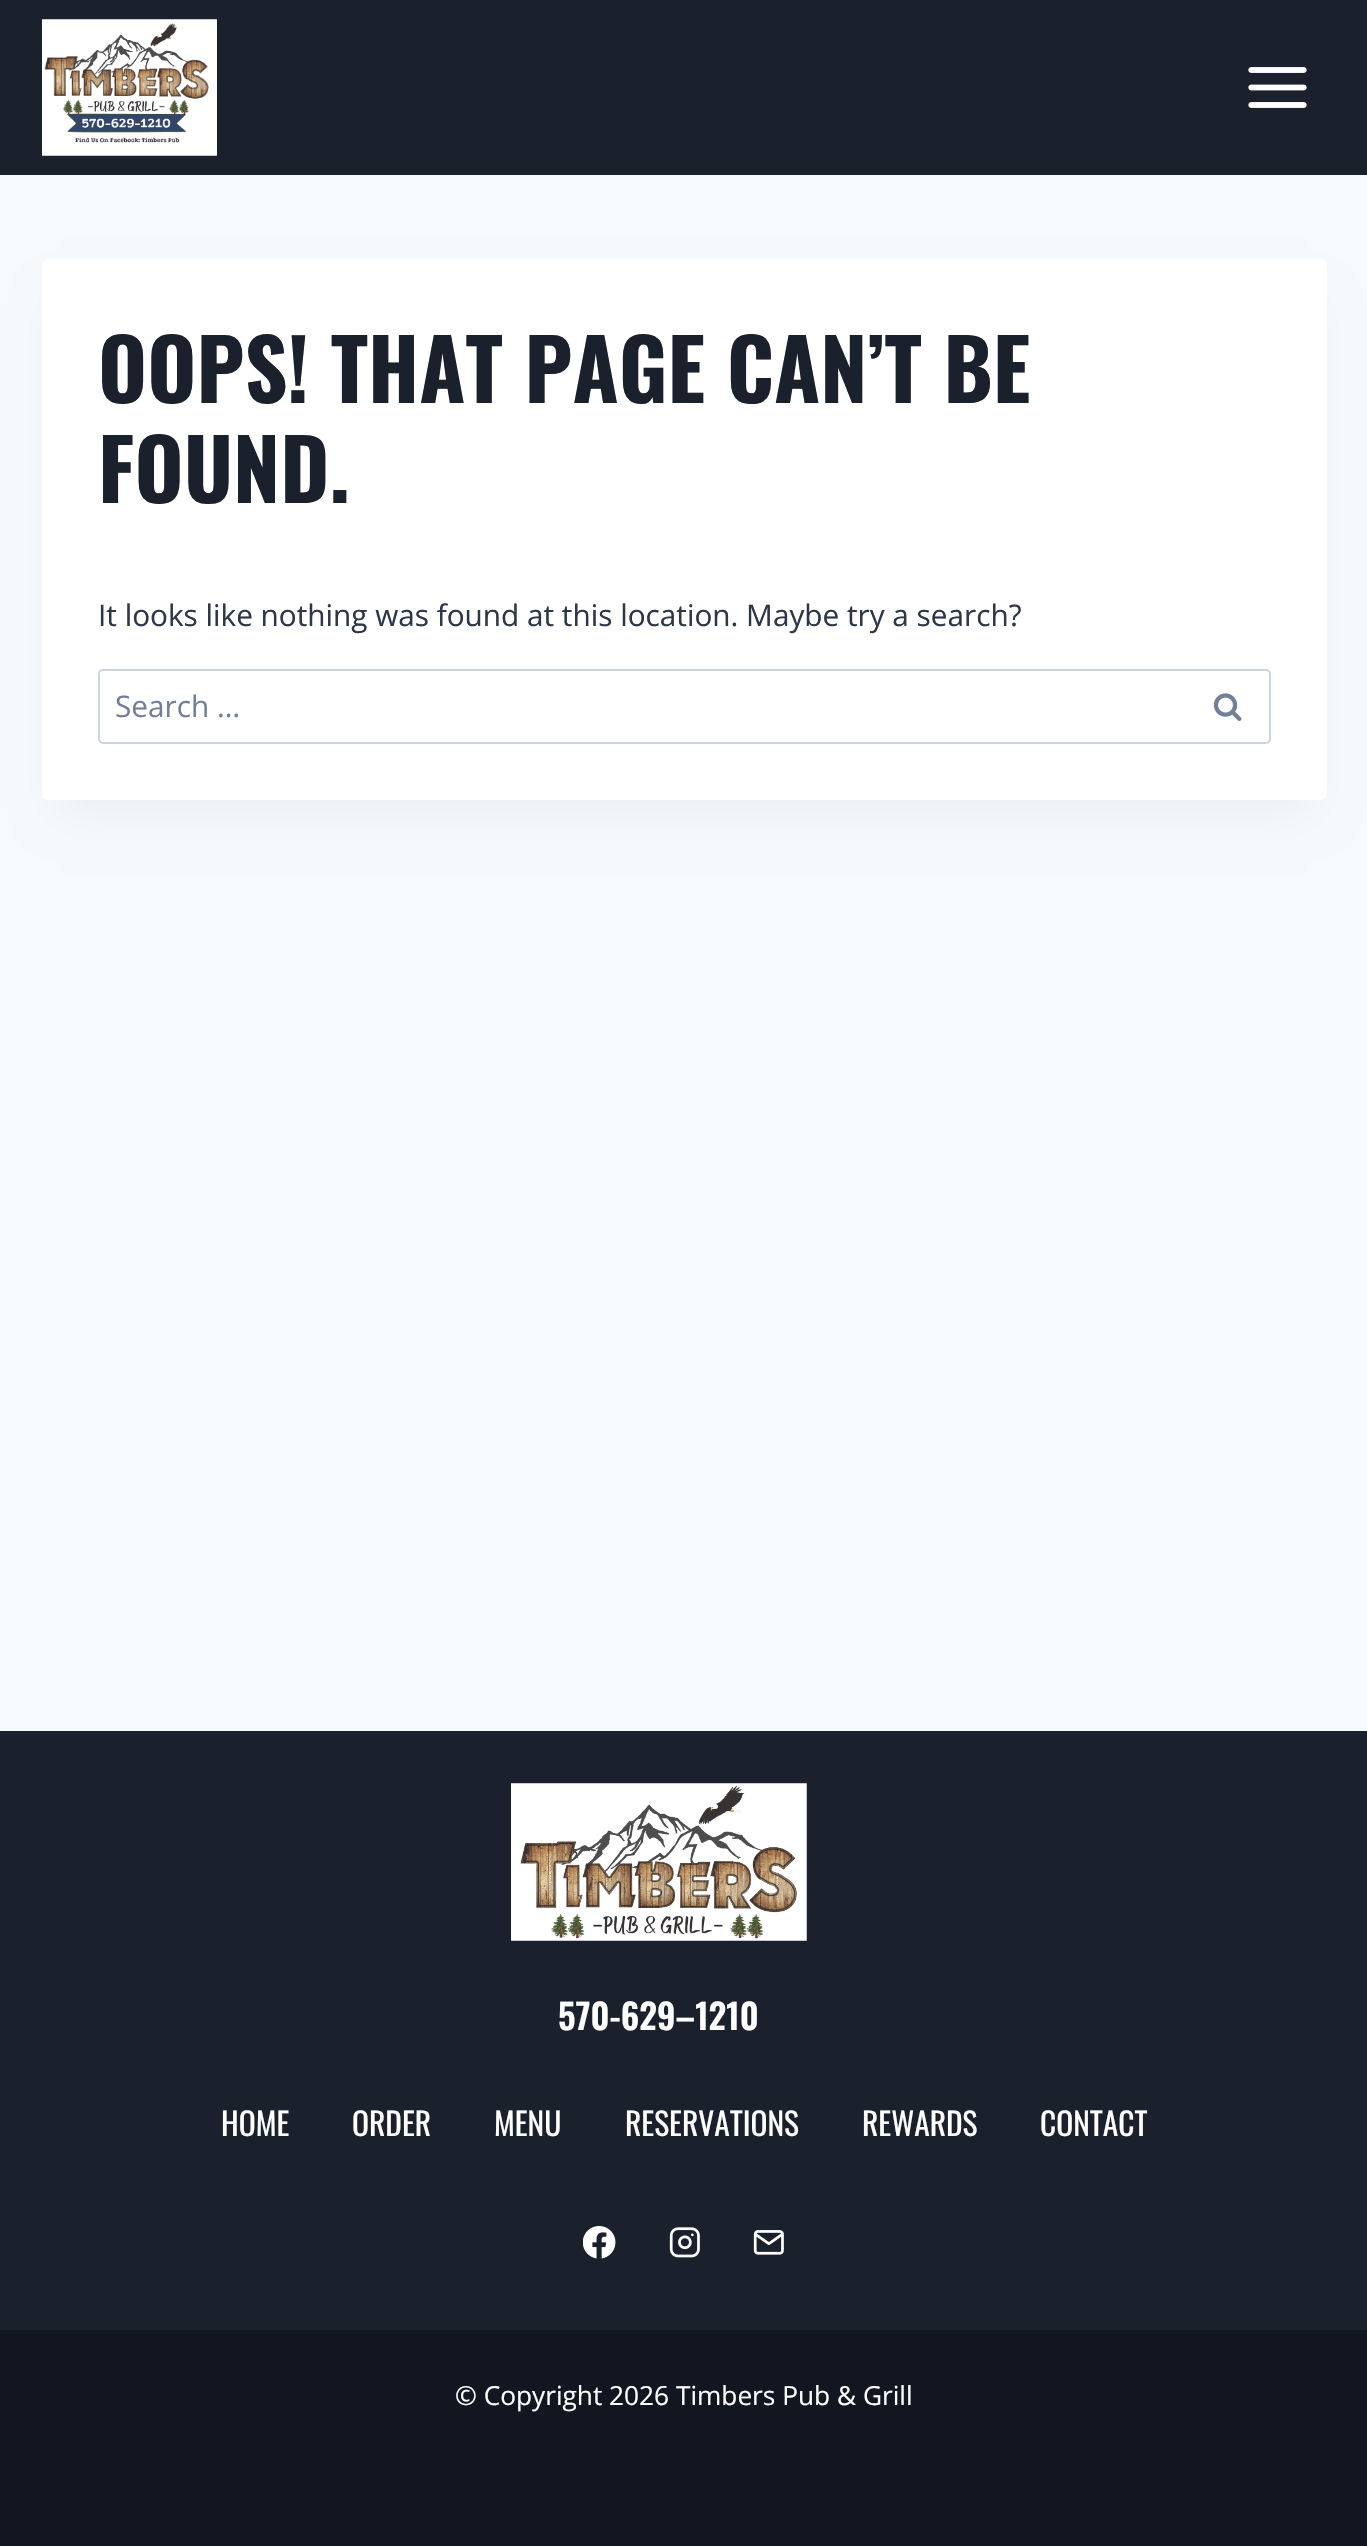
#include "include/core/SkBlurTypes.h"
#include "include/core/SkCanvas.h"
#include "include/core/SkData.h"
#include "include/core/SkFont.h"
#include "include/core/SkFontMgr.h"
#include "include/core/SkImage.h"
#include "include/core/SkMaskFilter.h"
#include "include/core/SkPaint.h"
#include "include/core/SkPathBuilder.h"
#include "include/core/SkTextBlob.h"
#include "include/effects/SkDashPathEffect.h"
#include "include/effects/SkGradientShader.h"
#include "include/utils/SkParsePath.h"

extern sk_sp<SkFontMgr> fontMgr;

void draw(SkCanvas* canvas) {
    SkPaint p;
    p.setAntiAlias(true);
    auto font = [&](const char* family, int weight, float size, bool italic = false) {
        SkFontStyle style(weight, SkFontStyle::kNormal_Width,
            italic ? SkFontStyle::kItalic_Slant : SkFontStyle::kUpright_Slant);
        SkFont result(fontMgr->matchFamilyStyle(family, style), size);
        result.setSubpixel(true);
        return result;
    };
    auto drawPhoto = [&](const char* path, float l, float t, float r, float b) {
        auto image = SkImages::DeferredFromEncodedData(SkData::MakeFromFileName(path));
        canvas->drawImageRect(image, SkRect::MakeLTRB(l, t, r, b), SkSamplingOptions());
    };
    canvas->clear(0xFFF7FAFC);
    p.setColor(0xFF1A202C);
    canvas->drawRect(SkRect::MakeLTRB(0, 0, 1367, 175), p);
    drawPhoto("media/1.png", 42, 19, 217, 156);
    drawPhoto("media/2.png", 1248, 67, 1307, 108);
    p.setColor(0x0D000000);
    p.setMaskFilter(SkMaskFilter::MakeBlur(kNormal_SkBlurStyle, 22));
    canvas->drawRect(SkRect::MakeLTRB(60, 303, 1309, 809), p);
    p.setMaskFilter(nullptr);
    p.setColor(0xFFFFFFFF);
    canvas->drawRoundRect(SkRect::MakeLTRB(42, 259, 1327, 800), 7, 7, p);
    auto font1 = font("Oswald", 700, 84);
    p.setColor(0xFF1A202C);
    canvas->drawString("OOPS! THAT PAGE CAN’T BE", 98, 403, font1, p);
    canvas->drawString("FOUND.", 98, 503, font1, p);
    auto font2 = font("Open Sans", 400, 29.75f);
    p.setColor(0xFF2D3748);
    canvas->drawString("It looks like nothing was found at this location. Maybe try a search?", 98, 626, font2, p);
    p.setStyle(SkPaint::kStroke_Style);
    p.setStrokeWidth(2);
    p.setColor(0xFFCBD5E0);
    canvas->drawRoundRect(SkRect::MakeLTRB(99, 670, 1270, 743), 4, 4, p);
    p.setStyle(SkPaint::kFill_Style);
    p.setColor(0xFF718096);
    canvas->drawString("Search …", 115, 717, font2, p);
    drawPhoto("media/3.png", 1213, 693, 1242, 721);
    p.setColor(0xFF1A202C);
    canvas->drawRect(SkRect::MakeLTRB(0, 1731, 1367, 2330), p);
    drawPhoto("media/4.png", 511, 1783, 807, 1941);
    auto font3 = font("Oswald", 600, 35);
    p.setColor(0xFFFFFFFF);
    canvas->drawString("570-629–1210", 558, 2030, font3, p);
    auto font4 = font("Oswald", 400, 31.5f);
    {
        const struct { const char* s; float x, y; } items[] = {
            {"HOME", 221, 2136},
            {"ORDER", 352, 2136},
            {"MENU", 494, 2136},
            {"RESERVATIONS", 625, 2136},
            {"REWARDS", 862, 2136},
            {"CONTACT", 1040, 2136},
        };
        for (auto [s, x, y] : items) {
            canvas->drawString(s, x, y, font4, p);
        }
    }
    drawPhoto("media/5.png", 583, 2226, 616, 2259);
    drawPhoto("media/6.png", 669, 2227, 700, 2258);
    drawPhoto("media/7.png", 753, 2230, 784, 2255);
    p.setColor(0xFF121620);
    canvas->drawRect(SkRect::MakeLTRB(0, 2330, 1367, 2546), p);
    auto font5 = font("Open Sans", 400, 26.25f);
    p.setColor(0xFFFFFFFF);
    canvas->drawString("© Copyright 2026 Timbers Pub & Grill", 455, 2405, font5, p);
}
